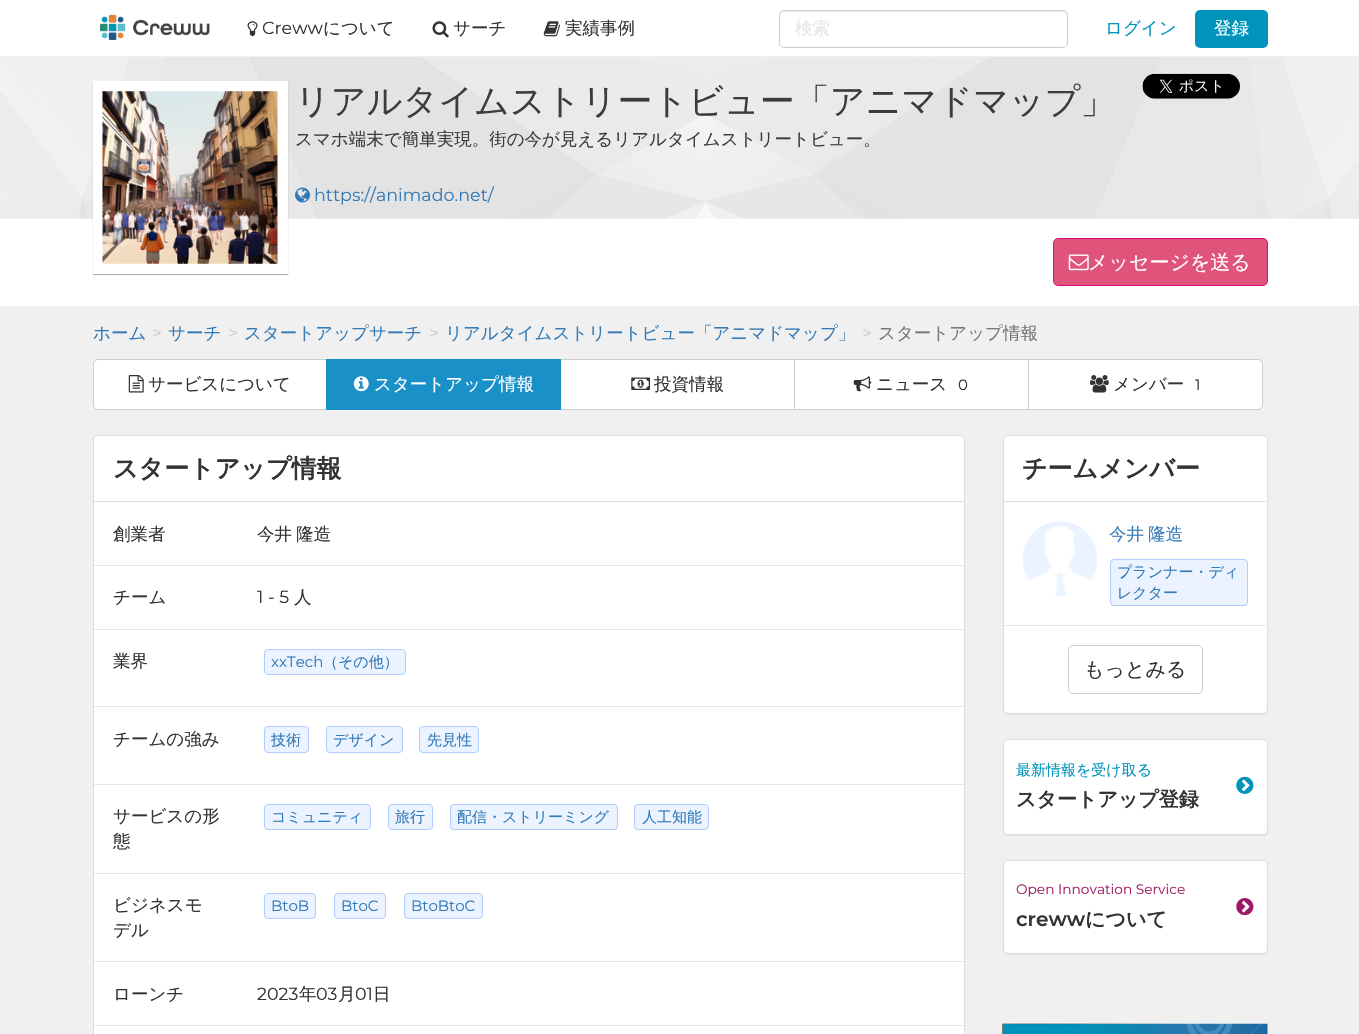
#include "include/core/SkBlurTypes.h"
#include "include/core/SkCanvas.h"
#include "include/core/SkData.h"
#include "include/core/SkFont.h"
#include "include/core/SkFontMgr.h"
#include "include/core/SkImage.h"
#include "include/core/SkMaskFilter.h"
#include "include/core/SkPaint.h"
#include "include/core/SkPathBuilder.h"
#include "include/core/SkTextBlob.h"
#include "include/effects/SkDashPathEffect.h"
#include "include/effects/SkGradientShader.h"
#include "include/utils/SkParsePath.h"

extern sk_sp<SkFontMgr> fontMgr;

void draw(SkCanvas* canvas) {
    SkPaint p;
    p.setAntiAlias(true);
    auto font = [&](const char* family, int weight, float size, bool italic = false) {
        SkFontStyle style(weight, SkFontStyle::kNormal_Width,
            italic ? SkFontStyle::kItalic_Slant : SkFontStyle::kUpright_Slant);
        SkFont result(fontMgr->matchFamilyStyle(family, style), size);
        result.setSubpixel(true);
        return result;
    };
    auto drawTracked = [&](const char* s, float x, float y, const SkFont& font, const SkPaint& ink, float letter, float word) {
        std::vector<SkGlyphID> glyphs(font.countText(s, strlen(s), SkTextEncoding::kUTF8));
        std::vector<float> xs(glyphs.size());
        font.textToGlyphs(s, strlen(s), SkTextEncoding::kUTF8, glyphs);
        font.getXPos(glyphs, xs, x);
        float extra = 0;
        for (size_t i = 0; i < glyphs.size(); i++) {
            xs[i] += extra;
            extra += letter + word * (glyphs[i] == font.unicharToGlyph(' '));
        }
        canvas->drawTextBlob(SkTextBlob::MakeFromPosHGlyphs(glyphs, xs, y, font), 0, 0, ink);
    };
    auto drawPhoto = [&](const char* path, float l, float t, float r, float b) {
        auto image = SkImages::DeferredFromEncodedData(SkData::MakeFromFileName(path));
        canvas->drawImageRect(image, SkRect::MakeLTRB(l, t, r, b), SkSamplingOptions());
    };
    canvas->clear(0xFFF0F0F0);
    p.setColor(0xFFFFFFFF);
    canvas->drawRect(SkRect::MakeLTRB(0, 0, 1359, 56), p);
    drawPhoto("media/1.png", 100, 14, 210, 40);
    drawPhoto("media/2.png", 247, 21, 258, 37);
    auto font1 = font("Montserrat", 400, 17.5f);
    p.setColor(0xFF333333);
    canvas->drawString("Creww", 262, 34, font1, p);
    auto font2 = font("WenQuanYi Zen Hei", 500, 17.5f);
    canvas->drawString("について", 323, 34, font2, p);
    drawPhoto("media/3.png", 432, 21, 449, 38);
    canvas->drawString("サーチ", 453, 34, font2, p);
    drawPhoto("media/4.png", 543, 21, 560, 37);
    canvas->drawString("実績事例", 565, 34, font2, p);
    p.setColor(0xFFECECEC);
    canvas->drawPath(SkPathBuilder().moveTo(784, 12).lineTo(1062, 12).cubicTo(1065, 12, 1066, 14, 1066, 16).cubicTo(1066, 13, 1065, 11, 1062, 11).lineTo(784, 11).cubicTo(781, 11, 780, 13, 780, 16).cubicTo(780, 14, 782, 12, 784, 12).close().detach(), p);
    p.setStyle(SkPaint::kStroke_Style);
    p.setStrokeWidth(1);
    p.setColor(0xFFCCCCCC);
    canvas->drawRoundRect(SkRect::MakeLTRB(779.5f, 10.5f, 1067.5f, 47.5f), 4.5f, 4.5f, p);
    p.setStyle(SkPaint::kFill_Style);
    p.setColor(0xFFE5E5E5);
    canvas->drawString("検索", 795, 34, font2, p);
    p.setColor(0xFF0094BB);
    canvas->drawString("ログイン", 1105, 34, font2, p);
    canvas->drawRoundRect(SkRect::MakeLTRB(1195, 10, 1268, 48), 5, 5, p);
    p.setColor(0xFFFFFFFF);
    canvas->drawString("登録", 1214, 34, font2, p);
    canvas->drawRect(SkRect::MakeLTRB(0, 218, 1359, 306), p);
    drawPhoto("media/5.png", 0, 57, 1359, 219);
    drawPhoto("media/6.png", 1142, 73, 1240, 99);
    p.setColor(0x4D010101);
    p.setMaskFilter(SkMaskFilter::MakeBlur(kNormal_SkBlurStyle, 0.5f));
    canvas->drawRect(SkRect::MakeLTRB(93, 83, 288, 275), p);
    p.setMaskFilter(nullptr);
    p.setColor(0xFFFFFFFF);
    canvas->drawRect(SkRect::MakeLTRB(93, 81, 288, 274), p);
    drawPhoto("media/7.png", 102, 91, 278, 264);
    auto font3 = font("WenQuanYi Zen Hei", 500, 35);
    p.setColor(0xFF3C3C3C);
    canvas->drawString("リアルタイムストリートビュー「アニマドマップ」", 295, 113, font3, p);
    canvas->drawString("スマホ端末で簡単実現。街の今が⾒えるリアルタイムストリートビュー。", 295, 145, font2, p);
    drawPhoto("media/8.png", 295, 187, 310, 203);
    p.setColor(0xFF337AB7);
    canvas->drawString("https://animado.net/", 314, 201, font1, p);
    p.setColor(0xFFE0547B);
    canvas->drawRoundRect(SkRect::MakeLTRB(1053.5f, 238.5f, 1267.5f, 285.5f), 4.5f, 4.5f, p);
    p.setStyle(SkPaint::kStroke_Style);
    p.setColor(0xFFD80F7A);
    canvas->drawRoundRect(SkRect::MakeLTRB(1053.5f, 238.5f, 1267.5f, 285.5f), 4.5f, 4.5f, p);
    drawPhoto("media/9.png", 1068, 254, 1089, 271);
    auto font4 = font("WenQuanYi Zen Hei", 500, 20);
    p.setStyle(SkPaint::kFill_Style);
    p.setColor(0xFFFFFFFF);
    canvas->drawString("メッセージを送る", 1088, 269, font4, p);
    p.setColor(0xFF337AB7);
    canvas->drawString("ホーム", 93, 339, font2, p);
    p.setColor(0xFFCCCCCC);
    canvas->drawString(">", 152, 339, font1, p);
    p.setColor(0xFF337AB7);
    canvas->drawString("サーチ", 168, 339, font2, p);
    p.setColor(0xFFCCCCCC);
    canvas->drawString(">", 228, 339, font1, p);
    p.setColor(0xFF337AB7);
    canvas->drawString("スタートアップサーチ", 244, 339, font2, p);
    p.setColor(0xFFCCCCCC);
    canvas->drawString(">", 429, 339, font1, p);
    p.setColor(0xFF337AB7);
    canvas->drawString("リアルタイムストリートビュー「アニマドマップ」", 445, 339, font2, p);
    p.setColor(0xFFCCCCCC);
    canvas->drawString(">", 862, 339, font1, p);
    p.setColor(0xFF777777);
    canvas->drawString("スタートアップ情報", 878, 339, font2, p);
    p.setColor(0xFFFFFFFF);
    canvas->drawPath(SkPathBuilder().moveTo(98, 359.5f).lineTo(327.5f, 359.5f).lineTo(327.5f, 409.5f).lineTo(98, 409.5f).cubicTo(95.5f, 409.5f, 93.5f, 407.5f, 93.5f, 405).lineTo(93.5f, 364).cubicTo(93.5f, 361.5f, 95.5f, 359.5f, 98, 359.5f).close().detach(), p);
    p.setStyle(SkPaint::kStroke_Style);
    p.setColor(0xFFCCCCCC);
    canvas->drawPath(SkPathBuilder().moveTo(98, 359.5f).lineTo(327.5f, 359.5f).lineTo(327.5f, 409.5f).lineTo(98, 409.5f).cubicTo(95.5f, 409.5f, 93.5f, 407.5f, 93.5f, 405).lineTo(93.5f, 364).cubicTo(93.5f, 361.5f, 95.5f, 359.5f, 98, 359.5f).close().detach(), p);
    drawPhoto("media/10.png", 128, 375, 144, 393);
    p.setStyle(SkPaint::kFill_Style);
    p.setColor(0xFF333333);
    canvas->drawString("サービスについて", 148, 390, font2, p);
    p.setColor(0xFFFFFFFF);
    canvas->drawRect(SkRect::MakeLTRB(560.5f, 359.5f, 794.5f, 409.5f), p);
    p.setStyle(SkPaint::kStroke_Style);
    p.setColor(0xFFCCCCCC);
    canvas->drawRect(SkRect::MakeLTRB(560.5f, 359.5f, 794.5f, 409.5f), p);
    p.setStyle(SkPaint::kFill_Style);
    p.setColor(0xFF1A90C9);
    canvas->drawRect(SkRect::MakeLTRB(326, 359, 561, 410), p);
    drawPhoto("media/11.png", 353, 376, 369, 392);
    p.setColor(0xFFFFFFFF);
    canvas->drawString("スタートアップ情報", 374, 390, font2, p);
    drawPhoto("media/12.png", 631, 377, 650, 390);
    p.setColor(0xFF333333);
    canvas->drawString("投資情報", 654, 390, font2, p);
    p.setColor(0xFFFFFFFF);
    canvas->drawRect(SkRect::MakeLTRB(794.5f, 359.5f, 1028.5f, 409.5f), p);
    p.setStyle(SkPaint::kStroke_Style);
    p.setColor(0xFFCCCCCC);
    canvas->drawRect(SkRect::MakeLTRB(794.5f, 359.5f, 1028.5f, 409.5f), p);
    drawPhoto("media/13.png", 853, 376, 872, 392);
    p.setStyle(SkPaint::kFill_Style);
    p.setColor(0xFF333333);
    canvas->drawString("ニュース", 876, 390, font2, p);
    auto font5 = font("Montserrat", 400, 15);
    canvas->drawString("0", 958, 390, font5, p);
    p.setColor(0xFFFFFFFF);
    canvas->drawPath(SkPathBuilder().moveTo(1028.5f, 359.5f).lineTo(1258, 359.5f).cubicTo(1260.5f, 359.5f, 1262.5f, 361.5f, 1262.5f, 364).lineTo(1262.5f, 405).cubicTo(1262.5f, 407.5f, 1260.5f, 409.5f, 1258, 409.5f).lineTo(1028.5f, 409.5f).close().detach(), p);
    p.setStyle(SkPaint::kStroke_Style);
    p.setColor(0xFFCCCCCC);
    canvas->drawPath(SkPathBuilder().moveTo(1028.5f, 359.5f).lineTo(1258, 359.5f).cubicTo(1260.5f, 359.5f, 1262.5f, 361.5f, 1262.5f, 364).lineTo(1262.5f, 405).cubicTo(1262.5f, 407.5f, 1260.5f, 409.5f, 1258, 409.5f).lineTo(1028.5f, 409.5f).close().detach(), p);
    drawPhoto("media/14.png", 1090, 375, 1109, 393);
    p.setStyle(SkPaint::kFill_Style);
    p.setColor(0xFF333333);
    canvas->drawString("メンバー", 1113, 390, font2, p);
    canvas->drawString("1", 1195, 390, font5, p);
    p.setColor(0xFFFFFFFF);
    canvas->drawRoundRect(SkRect::MakeLTRB(93.5f, 435.5f, 964.5f, 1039.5f), 4.5f, 4.5f, p);
    p.setStyle(SkPaint::kStroke_Style);
    p.setColor(0xFFDDDDDD);
    canvas->drawRoundRect(SkRect::MakeLTRB(93.5f, 435.5f, 964.5f, 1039.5f), 4.5f, 4.5f, p);
    p.setStyle(SkPaint::kFill_Style);
    p.setColor(0xFFFFFFFF);
    canvas->drawPath(SkPathBuilder().moveTo(98, 436).lineTo(960, 436).cubicTo(962, 436, 964, 438, 964, 440).lineTo(964, 503).lineTo(94, 503).lineTo(94, 440).cubicTo(94, 438, 96, 436, 98, 436).close().detach(), p);
    p.setColor(0xFFDDDDDD);
    canvas->drawRect(SkRect::MakeLTRB(94, 501, 964, 502), p);
    auto font6 = font("WenQuanYi Zen Hei", 700, 25);
    p.setColor(0xFF333333);
    canvas->drawString("スタートアップ情報", 113, 477, font6, p);
    p.setColor(0xFFE6E6E6);
    canvas->drawRect(SkRect::MakeLTRB(94, 565, 964, 566), p);
    p.setColor(0xFF333333);
    canvas->drawString("創業者", 113, 540, font2, p);
    drawTracked("今井 隆造", 257, 540, font2, p, 0, -1);
    p.setColor(0xFFE6E6E6);
    canvas->drawRect(SkRect::MakeLTRB(94, 629, 964, 630), p);
    p.setColor(0xFF333333);
    canvas->drawString("チーム", 113, 603, font2, p);
    canvas->drawString("1 - 5", 257, 603, font1, p);
    canvas->drawString("人", 294, 603, font2, p);
    p.setColor(0xFFE6E6E6);
    canvas->drawRect(SkRect::MakeLTRB(94, 706, 964, 707), p);
    p.setColor(0xFF333333);
    canvas->drawString("業界", 113, 667, font2, p);
    p.setColor(0xFFEAF3FF);
    canvas->drawRoundRect(SkRect::MakeLTRB(264.5f, 649.5f, 405.5f, 674.5f), 3.5f, 3.5f, p);
    p.setStyle(SkPaint::kStroke_Style);
    p.setColor(0xFFAECDFE);
    canvas->drawRoundRect(SkRect::MakeLTRB(264.5f, 649.5f, 405.5f, 674.5f), 3.5f, 3.5f, p);
    p.setStyle(SkPaint::kFill_Style);
    p.setColor(0xFF337AB7);
    canvas->drawString("xxTech", 271, 667, font5, p);
    auto font7 = font("WenQuanYi Zen Hei", 500, 15);
    canvas->drawString("（その他）", 323, 667, font7, p);
    p.setColor(0xFFE6E6E6);
    canvas->drawRect(SkRect::MakeLTRB(94, 784, 964, 785), p);
    p.setColor(0xFF333333);
    canvas->drawString("チームの強み", 113, 745, font2, p);
    p.setColor(0xFFEAF3FF);
    canvas->drawRoundRect(SkRect::MakeLTRB(264.5f, 726.5f, 308.5f, 752.5f), 3.5f, 3.5f, p);
    p.setStyle(SkPaint::kStroke_Style);
    p.setColor(0xFFAECDFE);
    canvas->drawRoundRect(SkRect::MakeLTRB(264.5f, 726.5f, 308.5f, 752.5f), 3.5f, 3.5f, p);
    p.setStyle(SkPaint::kFill_Style);
    p.setColor(0xFF337AB7);
    canvas->drawString("技術", 271, 745, font7, p);
    p.setColor(0xFFEAF3FF);
    canvas->drawRoundRect(SkRect::MakeLTRB(326.5f, 726.5f, 402.5f, 752.5f), 3.5f, 3.5f, p);
    p.setStyle(SkPaint::kStroke_Style);
    p.setColor(0xFFAECDFE);
    canvas->drawRoundRect(SkRect::MakeLTRB(326.5f, 726.5f, 402.5f, 752.5f), 3.5f, 3.5f, p);
    p.setStyle(SkPaint::kFill_Style);
    p.setColor(0xFF337AB7);
    canvas->drawString("デザイン", 333, 745, font7, p);
    p.setColor(0xFFEAF3FF);
    canvas->drawRoundRect(SkRect::MakeLTRB(419.5f, 726.5f, 478.5f, 752.5f), 3.5f, 3.5f, p);
    p.setStyle(SkPaint::kStroke_Style);
    p.setColor(0xFFAECDFE);
    canvas->drawRoundRect(SkRect::MakeLTRB(419.5f, 726.5f, 478.5f, 752.5f), 3.5f, 3.5f, p);
    p.setStyle(SkPaint::kFill_Style);
    p.setColor(0xFF337AB7);
    canvas->drawString("先見性", 427, 745, font7, p);
    p.setColor(0xFFE6E6E6);
    canvas->drawRect(SkRect::MakeLTRB(94, 873, 964, 874), p);
    p.setColor(0xFF333333);
    canvas->drawString("サービスの形", 113, 822, font2, p);
    canvas->drawString("態", 113, 847, font2, p);
    p.setColor(0xFFEAF3FF);
    canvas->drawRoundRect(SkRect::MakeLTRB(264.5f, 804.5f, 370.5f, 829.5f), 3.5f, 3.5f, p);
    p.setStyle(SkPaint::kStroke_Style);
    p.setColor(0xFFAECDFE);
    canvas->drawRoundRect(SkRect::MakeLTRB(264.5f, 804.5f, 370.5f, 829.5f), 3.5f, 3.5f, p);
    p.setStyle(SkPaint::kFill_Style);
    p.setColor(0xFF337AB7);
    canvas->drawString("コミュニティ", 271, 822, font7, p);
    p.setColor(0xFFEAF3FF);
    canvas->drawRoundRect(SkRect::MakeLTRB(388.5f, 804.5f, 432.5f, 829.5f), 3.5f, 3.5f, p);
    p.setStyle(SkPaint::kStroke_Style);
    p.setColor(0xFFAECDFE);
    canvas->drawRoundRect(SkRect::MakeLTRB(388.5f, 804.5f, 432.5f, 829.5f), 3.5f, 3.5f, p);
    p.setStyle(SkPaint::kFill_Style);
    p.setColor(0xFF337AB7);
    canvas->drawString("旅行", 395, 822, font7, p);
    p.setColor(0xFFEAF3FF);
    canvas->drawRoundRect(SkRect::MakeLTRB(450.5f, 804.5f, 617.5f, 829.5f), 3.5f, 3.5f, p);
    p.setStyle(SkPaint::kStroke_Style);
    p.setColor(0xFFAECDFE);
    canvas->drawRoundRect(SkRect::MakeLTRB(450.5f, 804.5f, 617.5f, 829.5f), 3.5f, 3.5f, p);
    p.setStyle(SkPaint::kFill_Style);
    p.setColor(0xFF337AB7);
    canvas->drawString("配信・ストリーミング", 457, 822, font7, p);
    p.setColor(0xFFEAF3FF);
    canvas->drawRoundRect(SkRect::MakeLTRB(634.5f, 804.5f, 708.5f, 829.5f), 3.5f, 3.5f, p);
    p.setStyle(SkPaint::kStroke_Style);
    p.setColor(0xFFAECDFE);
    canvas->drawRoundRect(SkRect::MakeLTRB(634.5f, 804.5f, 708.5f, 829.5f), 3.5f, 3.5f, p);
    p.setStyle(SkPaint::kFill_Style);
    p.setColor(0xFF337AB7);
    canvas->drawString("人工知能", 642, 822, font7, p);
    p.setColor(0xFFE6E6E6);
    canvas->drawRect(SkRect::MakeLTRB(94, 961, 964, 962), p);
    p.setColor(0xFF333333);
    canvas->drawString("ビジネスモ", 113, 911, font2, p);
    canvas->drawString("デル", 113, 936, font2, p);
    p.setColor(0xFFEAF3FF);
    canvas->drawRoundRect(SkRect::MakeLTRB(264.5f, 893.5f, 315.5f, 918.5f), 3.5f, 3.5f, p);
    p.setStyle(SkPaint::kStroke_Style);
    p.setColor(0xFFAECDFE);
    canvas->drawRoundRect(SkRect::MakeLTRB(264.5f, 893.5f, 315.5f, 918.5f), 3.5f, 3.5f, p);
    p.setStyle(SkPaint::kFill_Style);
    p.setColor(0xFF337AB7);
    canvas->drawString("BtoB", 271, 911, font5, p);
    p.setColor(0xFFEAF3FF);
    canvas->drawRoundRect(SkRect::MakeLTRB(334.5f, 893.5f, 385.5f, 918.5f), 3.5f, 3.5f, p);
    p.setStyle(SkPaint::kStroke_Style);
    p.setColor(0xFFAECDFE);
    canvas->drawRoundRect(SkRect::MakeLTRB(334.5f, 893.5f, 385.5f, 918.5f), 3.5f, 3.5f, p);
    p.setStyle(SkPaint::kFill_Style);
    p.setColor(0xFF337AB7);
    canvas->drawString("BtoC", 341, 911, font5, p);
    p.setColor(0xFFEAF3FF);
    canvas->drawRoundRect(SkRect::MakeLTRB(404.5f, 893.5f, 482.5f, 918.5f), 3.5f, 3.5f, p);
    p.setStyle(SkPaint::kStroke_Style);
    p.setColor(0xFFAECDFE);
    canvas->drawRoundRect(SkRect::MakeLTRB(404.5f, 893.5f, 482.5f, 918.5f), 3.5f, 3.5f, p);
    p.setStyle(SkPaint::kFill_Style);
    p.setColor(0xFF337AB7);
    canvas->drawString("BtoBtoC", 411, 911, font5, p);
    p.setColor(0xFFE6E6E6);
    canvas->drawRect(SkRect::MakeLTRB(94, 1025, 964, 1026), p);
    p.setColor(0xFF333333);
    canvas->drawString("ローンチ", 113, 1000, font2, p);
    canvas->drawString("2023", 257, 1000, font1, p);
    canvas->drawString("年", 299, 1000, font2, p);
    canvas->drawString("03", 316, 1000, font1, p);
    canvas->drawString("月", 338, 1000, font2, p);
    canvas->drawString("01", 355, 1000, font1, p);
    canvas->drawString("日", 373, 1000, font2, p);
    p.setColor(0x0D000000);
    p.setMaskFilter(SkMaskFilter::MakeBlur(kNormal_SkBlurStyle, 0.5f));
    canvas->drawRoundRect(SkRect::MakeLTRB(1003, 436, 1268, 715), 5, 5, p);
    p.setMaskFilter(nullptr);
    p.setColor(0xFFFFFFFF);
    canvas->drawRoundRect(SkRect::MakeLTRB(1003.5f, 435.5f, 1267.5f, 713.5f), 4.5f, 4.5f, p);
    p.setStyle(SkPaint::kStroke_Style);
    p.setColor(0xFFDDDDDD);
    canvas->drawRoundRect(SkRect::MakeLTRB(1003.5f, 435.5f, 1267.5f, 713.5f), 4.5f, 4.5f, p);
    p.setStyle(SkPaint::kFill_Style);
    p.setColor(0xFFFFFFFF);
    canvas->drawPath(SkPathBuilder().moveTo(1008, 436).lineTo(1262, 436).cubicTo(1264, 436, 1266, 438, 1266, 440).lineTo(1266, 503).lineTo(1004, 503).lineTo(1004, 440).cubicTo(1004, 438, 1006, 436, 1008, 436).close().detach(), p);
    p.setColor(0xFFDDDDDD);
    canvas->drawRect(SkRect::MakeLTRB(1004, 501, 1266, 502), p);
    p.setColor(0xFF333333);
    canvas->drawString("チームメンバー", 1022, 477, font6, p);
    p.setColor(0xFFE6E6E6);
    canvas->drawRect(SkRect::MakeLTRB(1004, 625, 1266, 626), p);
    drawPhoto("media/15.png", 1022, 521, 1098, 596);
    p.setColor(0xFF337AB7);
    drawTracked("今井 隆造", 1109, 540, font2, p, 0, -1);
    p.setColor(0xFFEAF3FF);
    canvas->drawRoundRect(SkRect::MakeLTRB(1110.5f, 559.5f, 1247.5f, 605.5f), 3.5f, 3.5f, p);
    p.setStyle(SkPaint::kStroke_Style);
    p.setColor(0xFFAECDFE);
    canvas->drawRoundRect(SkRect::MakeLTRB(1110.5f, 559.5f, 1247.5f, 605.5f), 3.5f, 3.5f, p);
    p.setStyle(SkPaint::kFill_Style);
    p.setColor(0xFF337AB7);
    canvas->drawString("プランナー・ディ", 1117, 577, font7, p);
    canvas->drawString("レクター", 1117, 598, font7, p);
    p.setStyle(SkPaint::kStroke_Style);
    p.setColor(0xFFCCCCCC);
    canvas->drawRoundRect(SkRect::MakeLTRB(1068.5f, 645.5f, 1202.5f, 693.5f), 4.5f, 4.5f, p);
    p.setStyle(SkPaint::kFill_Style);
    p.setColor(0xFF333333);
    canvas->drawString("もっとみる", 1084, 676, font4, p);
    p.setColor(0x0D000000);
    p.setMaskFilter(SkMaskFilter::MakeBlur(kNormal_SkBlurStyle, 0.5f));
    canvas->drawRoundRect(SkRect::MakeLTRB(1003, 740, 1268, 836), 5, 5, p);
    p.setMaskFilter(nullptr);
    p.setColor(0xFFFFFFFF);
    canvas->drawRoundRect(SkRect::MakeLTRB(1003.5f, 739.5f, 1267.5f, 834.5f), 4.5f, 4.5f, p);
    p.setStyle(SkPaint::kStroke_Style);
    p.setColor(0xFFDDDDDD);
    canvas->drawRoundRect(SkRect::MakeLTRB(1003.5f, 739.5f, 1267.5f, 834.5f), 4.5f, 4.5f, p);
    p.setStyle(SkPaint::kFill_Style);
    p.setColor(0xFF0094BB);
    canvas->drawString("最新情報を受け取る", 1016, 775, font7, p);
    auto font8 = font("WenQuanYi Zen Hei", 700, 20);
    p.setColor(0xFF333333);
    canvas->drawString("スタートアップ登録", 1016, 806, font8, p);
    drawPhoto("media/16.png", 1236, 776, 1254, 794);
    p.setColor(0x0D000000);
    p.setMaskFilter(SkMaskFilter::MakeBlur(kNormal_SkBlurStyle, 0.5f));
    canvas->drawRoundRect(SkRect::MakeLTRB(1003, 861, 1268, 955), 5, 5, p);
    p.setMaskFilter(nullptr);
    p.setColor(0xFFFFFFFF);
    canvas->drawRoundRect(SkRect::MakeLTRB(1003.5f, 860.5f, 1267.5f, 953.5f), 4.5f, 4.5f, p);
    p.setStyle(SkPaint::kStroke_Style);
    p.setColor(0xFFDDDDDD);
    canvas->drawRoundRect(SkRect::MakeLTRB(1003.5f, 860.5f, 1267.5f, 953.5f), 4.5f, 4.5f, p);
    auto font9 = font("Montserrat", 400, 13.75f);
    p.setStyle(SkPaint::kFill_Style);
    p.setColor(0xFF9F1A66);
    canvas->drawString("Open Innovation Service", 1016, 894, font9, p);
    auto font10 = font("Montserrat", 600, 20);
    p.setColor(0xFF333333);
    canvas->drawString("creww", 1016, 926, font10, p);
    canvas->drawString("について", 1085, 926, font8, p);
    drawPhoto("media/17.png", 1236, 898, 1254, 916);
    drawPhoto("media/18.png", 1002, 1023, 1268, 1034);
}
